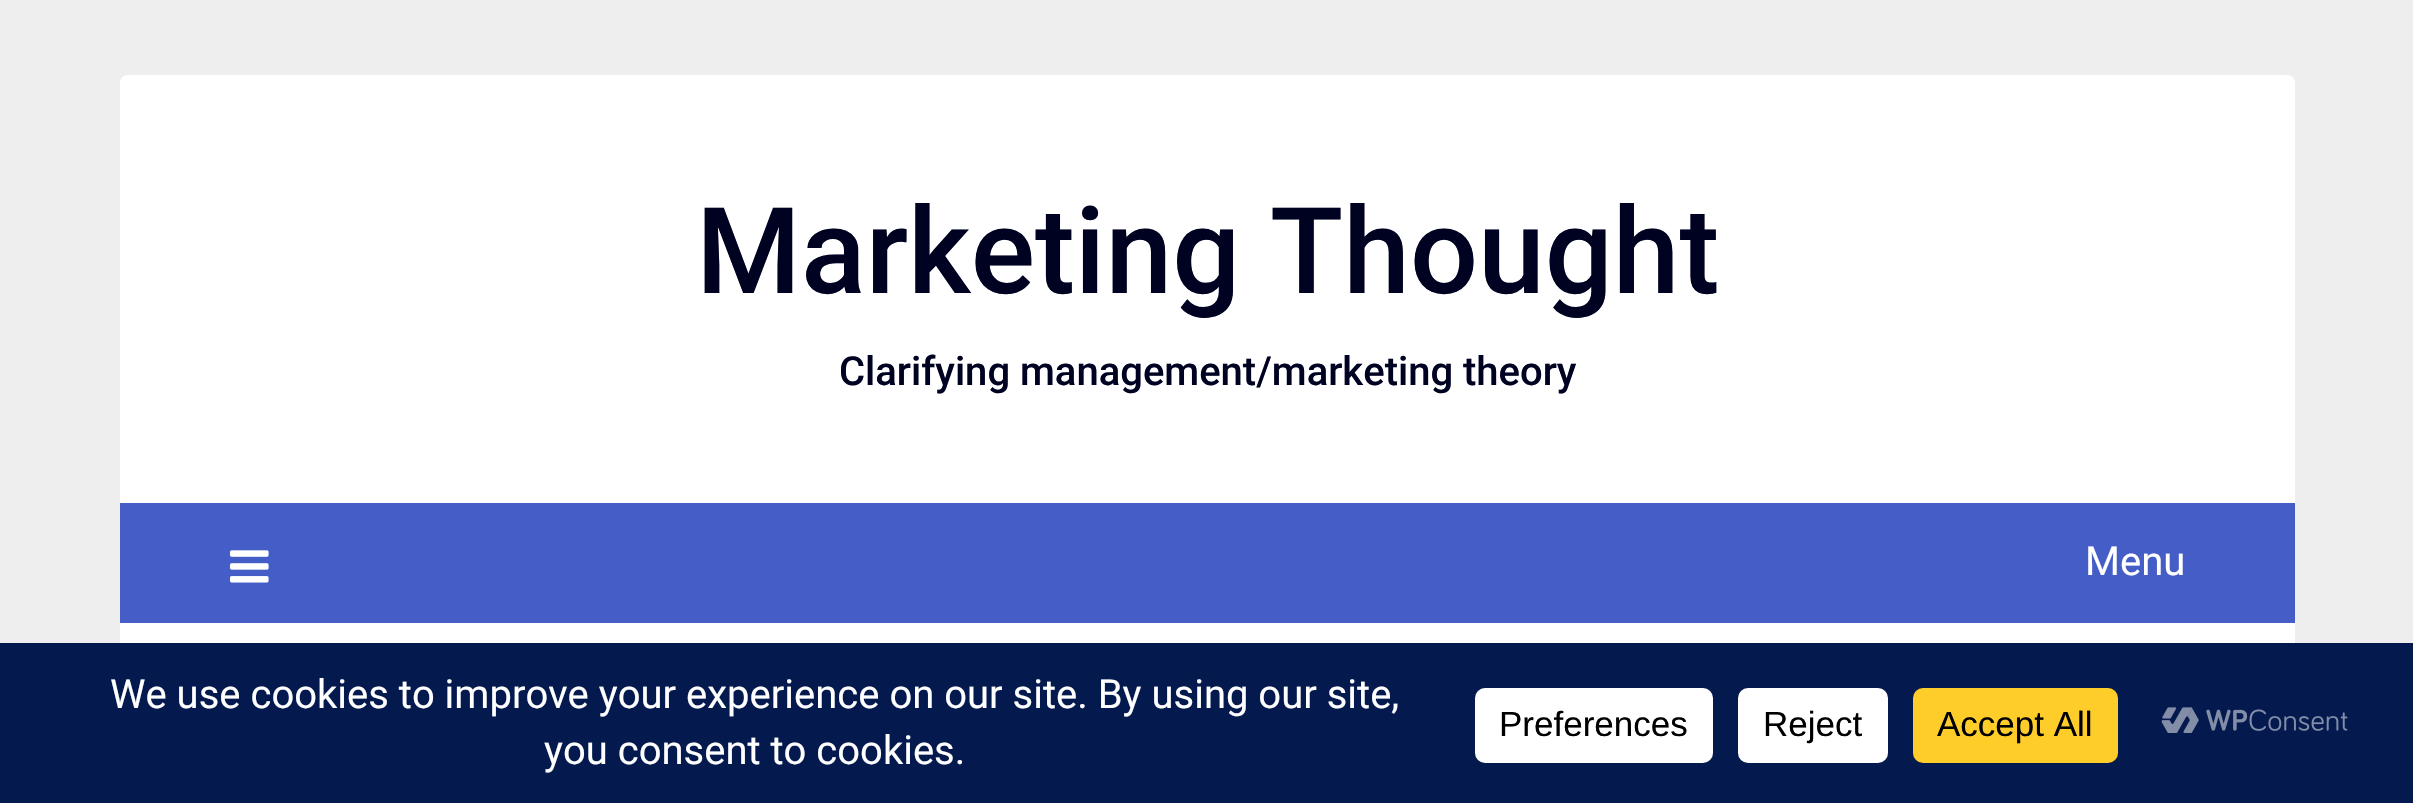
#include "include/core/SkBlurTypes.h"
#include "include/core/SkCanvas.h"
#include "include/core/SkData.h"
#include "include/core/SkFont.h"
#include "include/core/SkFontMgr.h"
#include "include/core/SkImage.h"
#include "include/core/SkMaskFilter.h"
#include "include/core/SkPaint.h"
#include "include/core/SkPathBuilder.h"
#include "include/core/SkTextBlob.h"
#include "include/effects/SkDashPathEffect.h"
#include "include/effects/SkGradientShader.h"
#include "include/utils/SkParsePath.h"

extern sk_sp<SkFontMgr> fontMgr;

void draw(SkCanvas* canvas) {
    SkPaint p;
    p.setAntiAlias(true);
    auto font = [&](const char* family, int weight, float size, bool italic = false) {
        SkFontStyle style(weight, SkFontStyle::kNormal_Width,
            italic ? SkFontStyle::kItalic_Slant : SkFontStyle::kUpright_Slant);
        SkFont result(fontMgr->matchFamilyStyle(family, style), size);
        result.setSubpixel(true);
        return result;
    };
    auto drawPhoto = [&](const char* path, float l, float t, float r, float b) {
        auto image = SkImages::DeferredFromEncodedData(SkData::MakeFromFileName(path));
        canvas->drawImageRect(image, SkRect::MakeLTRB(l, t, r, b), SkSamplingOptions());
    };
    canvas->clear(0xFFEEEEEE);
    p.setColor(0xFFFFFFFF);
    canvas->drawPath(SkPathBuilder().moveTo(128, 75).lineTo(2287, 75).cubicTo(2291.5f, 75, 2295, 78.5f, 2295, 83).lineTo(2295, 503).lineTo(120, 503).lineTo(120, 83).cubicTo(120, 78.5f, 123.5f, 75, 128, 75).close().detach(), p);
    auto font1 = font("Roboto", 500, 120);
    p.setColor(0xFF000222);
    canvas->drawString("Marketing Thought", 696, 293, font1, p);
    auto font2 = font("Roboto", 500, 40);
    canvas->drawString("Clarifying management/marketing theory", 839, 385, font2, p);
    p.setColor(0xFF455DC7);
    canvas->drawRect(SkRect::MakeLTRB(120, 503, 2295, 623), p);
    drawPhoto("media/1.png", 230, 550, 269, 583);
    auto font3 = font("Roboto", 400, 40);
    p.setColor(0xFFFFFFFF);
    canvas->drawString("Menu", 2085, 575, font3, p);
    canvas->drawRect(SkRect::MakeLTRB(120, 623, 2295, 643), p);
    p.setColor(0xFF04194E);
    canvas->drawRect(SkRect::MakeLTRB(0, 643, 2413, 803), p);
    p.setColor(0xFFFFFFFF);
    canvas->drawString("We use cookies to improve your experience on our site. By using our site,", 110, 708, font3, p);
    canvas->drawString("you consent to cookies.", 544, 764, font3, p);
    canvas->drawRoundRect(SkRect::MakeLTRB(1475, 688, 1713, 763), 10, 10, p);
    auto font4 = font("Liberation Sans", 400, 35);
    p.setColor(0xFF000000);
    canvas->drawString("Preferences", 1499, 736, font4, p);
    p.setColor(0xFFFFFFFF);
    canvas->drawRoundRect(SkRect::MakeLTRB(1738, 688, 1888, 763), 10, 10, p);
    p.setColor(0xFF000000);
    canvas->drawString("Reject", 1763, 736, font4, p);
    p.setColor(0xFFFFCD2A);
    canvas->drawRoundRect(SkRect::MakeLTRB(1913, 688, 2118, 763), 10, 10, p);
    p.setColor(0xFF000000);
    canvas->drawString("Accept All", 1937, 736, font4, p);
    drawPhoto("media/2.png", 2161, 707, 2348, 733);
}
